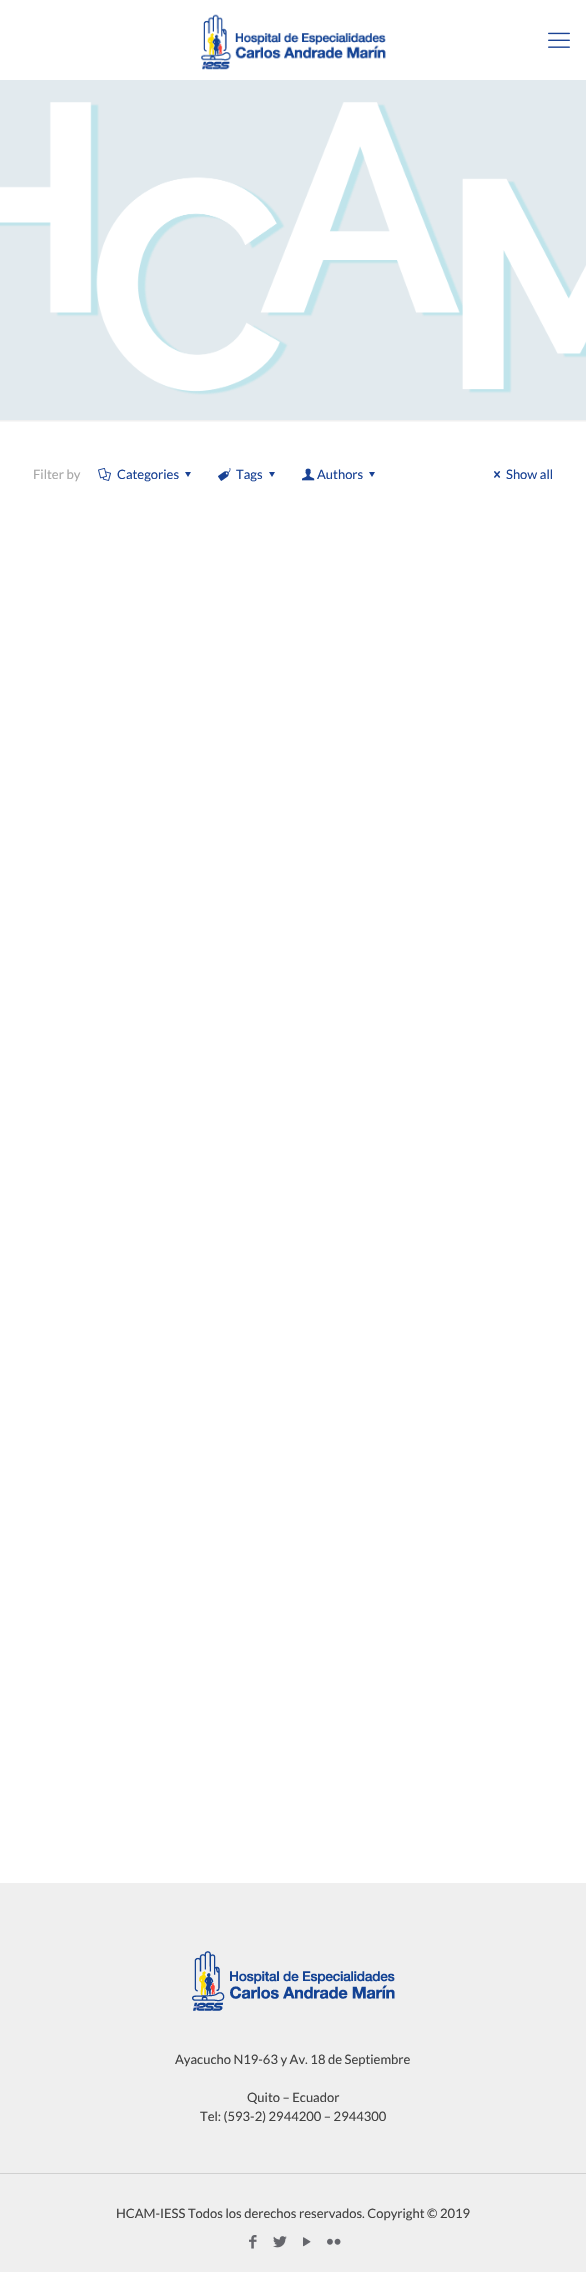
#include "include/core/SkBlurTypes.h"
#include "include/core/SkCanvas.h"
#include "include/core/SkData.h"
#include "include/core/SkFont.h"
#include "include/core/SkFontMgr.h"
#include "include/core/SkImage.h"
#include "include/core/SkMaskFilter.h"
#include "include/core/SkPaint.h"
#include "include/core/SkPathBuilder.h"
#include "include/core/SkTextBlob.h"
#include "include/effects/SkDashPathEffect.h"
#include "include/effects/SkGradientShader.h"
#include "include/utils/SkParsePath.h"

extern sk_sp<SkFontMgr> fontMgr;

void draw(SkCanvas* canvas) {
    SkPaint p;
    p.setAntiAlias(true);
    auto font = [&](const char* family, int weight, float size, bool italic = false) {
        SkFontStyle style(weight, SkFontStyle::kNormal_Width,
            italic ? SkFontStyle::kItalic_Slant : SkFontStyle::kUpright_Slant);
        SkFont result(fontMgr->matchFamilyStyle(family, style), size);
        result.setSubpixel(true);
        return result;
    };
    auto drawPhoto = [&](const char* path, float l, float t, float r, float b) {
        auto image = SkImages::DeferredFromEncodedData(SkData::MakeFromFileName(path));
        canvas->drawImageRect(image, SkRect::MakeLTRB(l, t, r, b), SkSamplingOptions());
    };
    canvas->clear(0xFFFFFFFF);
    drawPhoto("media/1.png", 201, 14, 386, 70);
    drawPhoto("media/2.png", 548, 32, 570, 48);
    p.setColor(0xFFE2EAEE);
    canvas->drawRect(SkRect::MakeLTRB(0, 80, 586, 420), p);
    drawPhoto("media/3.png", 0, 102, 586, 395);
    drawPhoto("media/4.png", 0, 420, 586, 422);
    auto font1 = font("Lato", 400, 13);
    p.setColor(0xFFA8A8A8);
    canvas->drawString("Filter by", 33, 479, font1, p);
    drawPhoto("media/5.png", 98, 468, 111, 481);
    p.setColor(0xFF194294);
    canvas->drawString("Categories", 117, 479, font1, p);
    canvas->drawPath(SkPathBuilder().moveTo(191, 472).lineTo(188, 477).lineTo(185, 472).close().detach(), p);
    drawPhoto("media/6.png", 218, 468, 231, 481);
    canvas->drawString("Tags", 236, 479, font1, p);
    canvas->drawPath(SkPathBuilder().moveTo(275, 472).lineTo(272, 477).lineTo(269, 472).close().detach(), p);
    drawPhoto("media/7.png", 302, 468, 315, 481);
    canvas->drawString("Authors", 317, 479, font1, p);
    canvas->drawPath(SkPathBuilder().moveTo(375, 472).lineTo(372, 477).lineTo(369, 472).close().detach(), p);
    drawPhoto("media/8.png", 494, 471, 501, 478);
    canvas->drawString("Show all", 506, 479, font1, p);
    p.setColor(0xFFEFEFEF);
    canvas->drawRect(SkRect::MakeLTRB(0, 1883, 586, 2272), p);
    drawPhoto("media/9.png", 191, 1951, 395, 2011);
    p.setColor(0xFF424242);
    {
        const struct { const char* s; float x, y; } items[] = {
            {"Ayacucho N19-63 y Av. 18 de Septiembre", 175, 2064},
            {"Quito – Ecuador", 247, 2102},
            {"Tel: (593-2) 2944200 – 2944300", 200, 2121},
        };
        for (auto [s, x, y] : items) {
            canvas->drawString(s, x, y, font1, p);
        }
    }
    p.setColor(0xFFD0D0D0);
    canvas->drawRect(SkRect::MakeLTRB(0, 2173, 586, 2174), p);
    p.setColor(0xFF424242);
    canvas->drawString("HCAM-IESS Todos los derechos reservados. Copyright © 2019", 116, 2218, font1, p);
    drawPhoto("media/10.png", 249, 2235, 257, 2249);
    drawPhoto("media/11.png", 273, 2236, 287, 2248);
    drawPhoto("media/12.png", 303, 2237, 311, 2247);
    drawPhoto("media/13.png", 327, 2238, 341, 2245);
}
